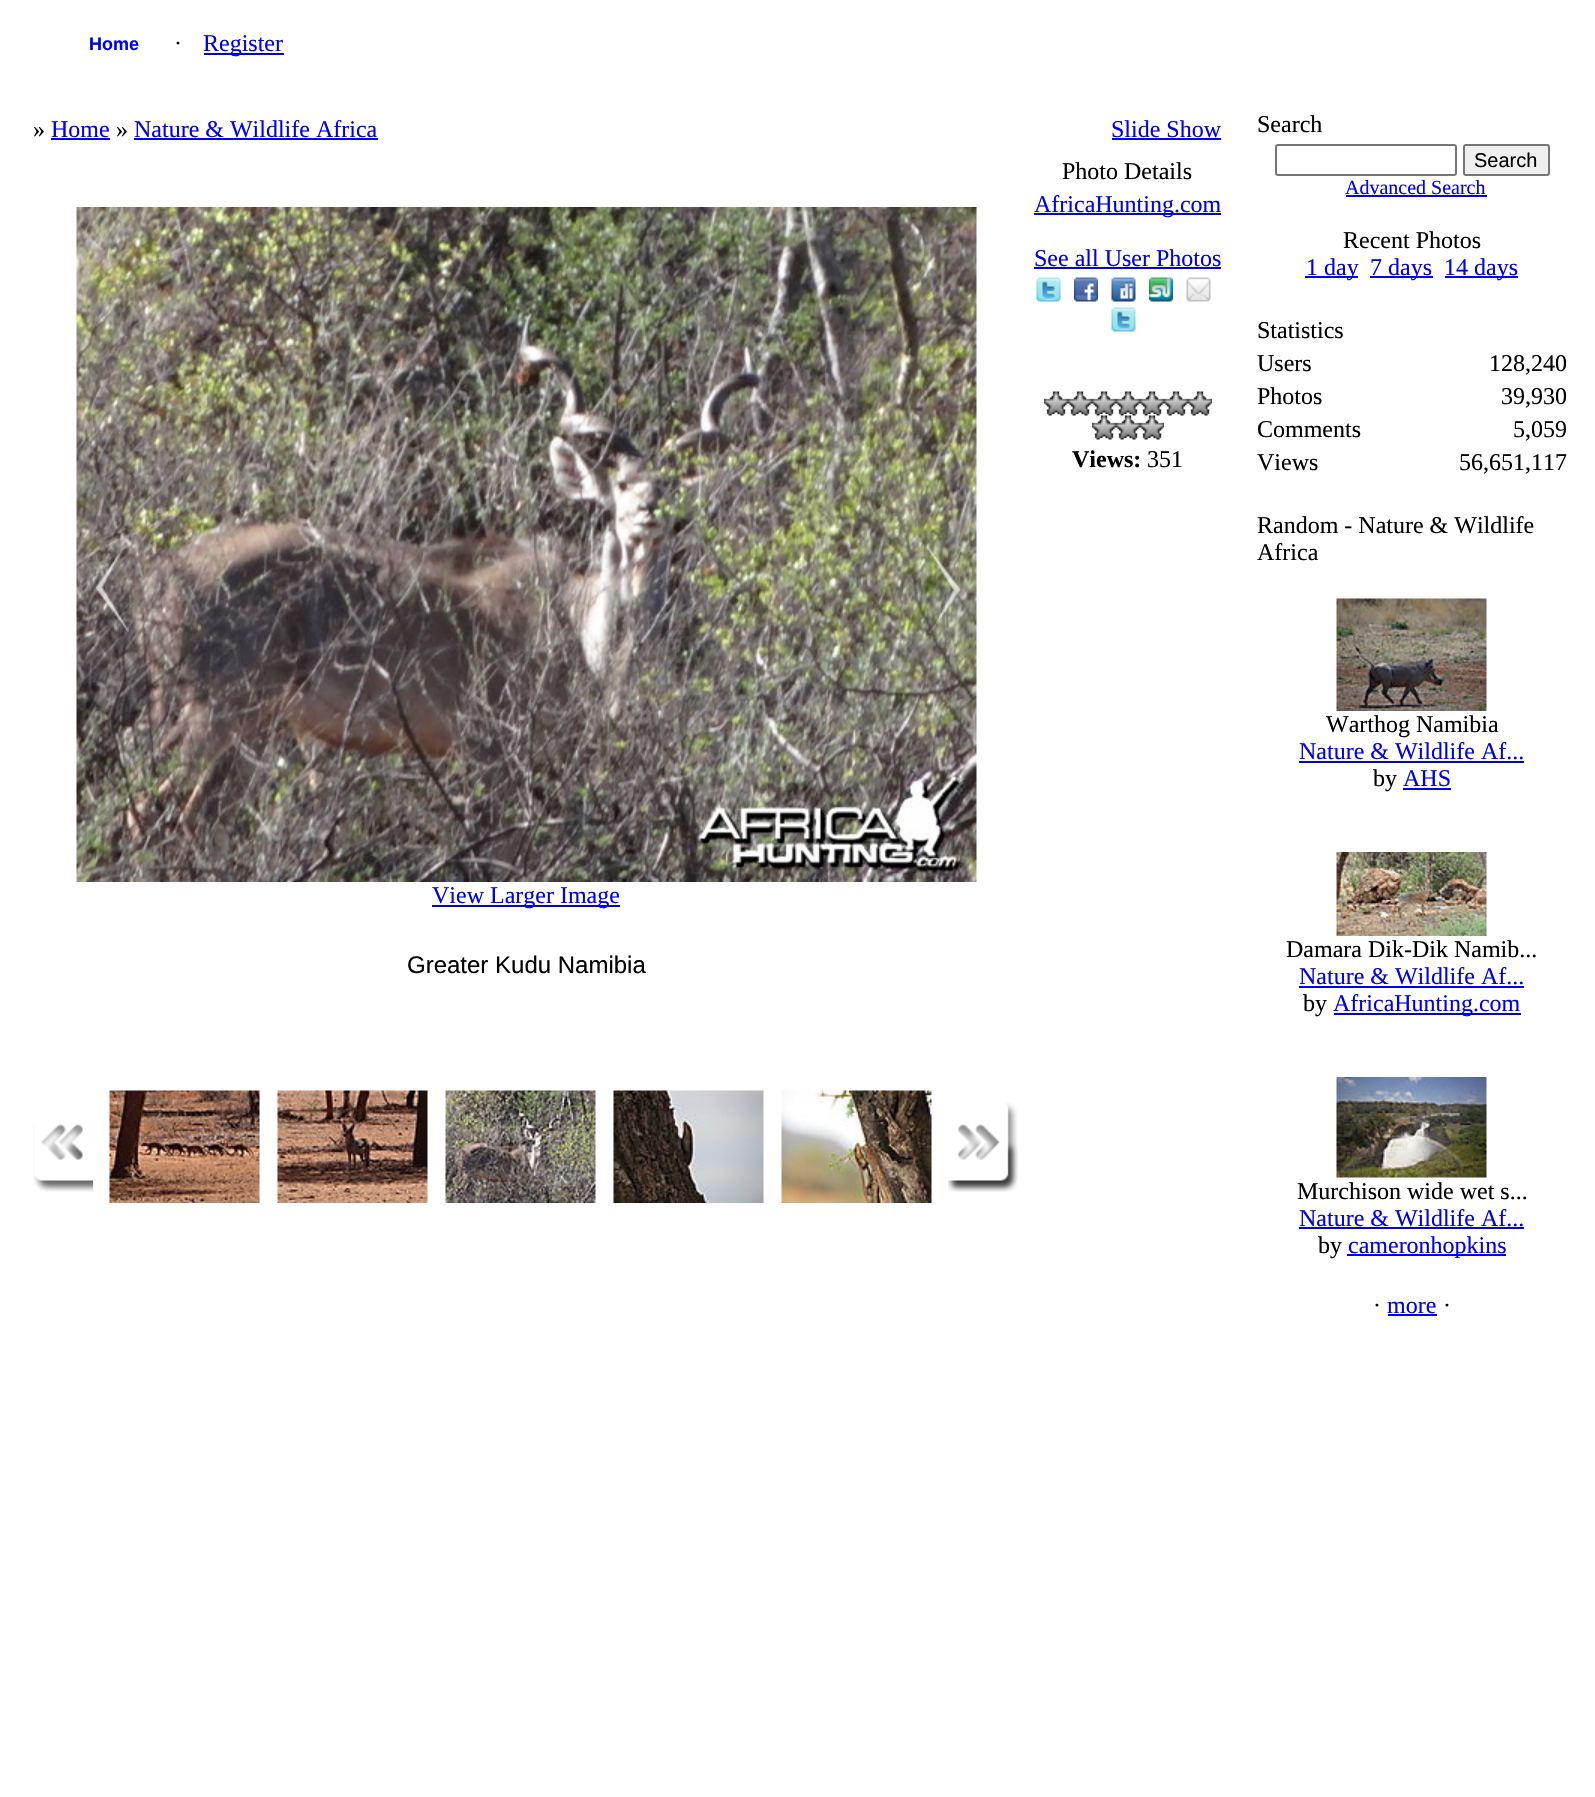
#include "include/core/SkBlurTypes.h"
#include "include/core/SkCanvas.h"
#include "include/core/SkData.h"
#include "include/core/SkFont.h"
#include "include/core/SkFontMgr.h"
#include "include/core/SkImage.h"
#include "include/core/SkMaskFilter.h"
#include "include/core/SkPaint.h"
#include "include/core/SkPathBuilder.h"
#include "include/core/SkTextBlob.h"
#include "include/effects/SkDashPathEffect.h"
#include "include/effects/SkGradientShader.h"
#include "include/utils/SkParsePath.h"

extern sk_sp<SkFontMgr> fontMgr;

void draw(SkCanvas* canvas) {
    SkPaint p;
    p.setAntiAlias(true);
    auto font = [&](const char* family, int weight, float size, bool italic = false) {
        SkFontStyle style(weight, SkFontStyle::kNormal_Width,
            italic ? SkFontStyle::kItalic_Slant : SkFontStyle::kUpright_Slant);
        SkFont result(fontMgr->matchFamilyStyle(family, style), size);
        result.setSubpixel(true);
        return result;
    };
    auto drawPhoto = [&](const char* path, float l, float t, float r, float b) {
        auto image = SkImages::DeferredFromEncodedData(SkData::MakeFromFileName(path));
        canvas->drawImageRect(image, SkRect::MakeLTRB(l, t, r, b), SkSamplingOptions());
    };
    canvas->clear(0xFFFFFFFF);
    auto font1 = font("Liberation Sans", 700, 18);
    p.setColor(0xFF0000EE);
    canvas->drawString("Home", 89, 50, font1, p);
    auto font2 = font("Liberation Serif", 400, 24);
    p.setColor(0xFF000000);
    canvas->drawString("·", 174, 51, font2, p);
    p.setColor(0xFF0000EE);
    canvas->drawRect(SkRect::MakeLTRB(204, 53, 284, 55), p);
    canvas->drawString("Register", 203, 51, font2, p);
    p.setColor(0xFF000000);
    canvas->drawString("»", 33, 137, font2, p);
    p.setColor(0xFF0000EE);
    canvas->drawString("Home", 51, 137, font2, p);
    canvas->drawRect(SkRect::MakeLTRB(51, 138, 110, 140), p);
    p.setColor(0xFF000000);
    canvas->drawString("»", 116, 137, font2, p);
    p.setColor(0xFF0000EE);
    canvas->drawString("Nature & Wildlife Africa", 134, 137, font2, p);
    canvas->drawRect(SkRect::MakeLTRB(134, 138, 378, 140), p);
    canvas->drawString("Slide Show", 1111, 137, font2, p);
    canvas->drawRect(SkRect::MakeLTRB(1112, 138, 1221, 140), p);
    p.setColor(0xFF000000);
    canvas->drawString("Photo Details", 1062, 179, font2, p);
    p.setColor(0xFF0000EE);
    canvas->drawRect(SkRect::MakeLTRB(1034, 213, 1221, 215), p);
    canvas->drawString("AfricaHunting.com", 1034, 212, font2, p);
    canvas->drawString("See all User Photos", 1034, 266, font2, p);
    canvas->drawRect(SkRect::MakeLTRB(1034, 267, 1221, 269), p);
    drawPhoto("media/1.png", 1036, 277, 1061, 302);
    drawPhoto("media/2.png", 1074, 277, 1098, 302);
    drawPhoto("media/3.png", 1111, 277, 1136, 302);
    drawPhoto("media/4.png", 1149, 277, 1173, 302);
    drawPhoto("media/5.png", 1186, 277, 1211, 302);
    drawPhoto("media/1.png", 1111, 307, 1136, 332);
    drawPhoto("media/6.png", 1044, 391, 1068, 416);
    drawPhoto("media/6.png", 1068, 391, 1092, 416);
    drawPhoto("media/6.png", 1092, 391, 1116, 416);
    drawPhoto("media/6.png", 1116, 391, 1140, 416);
    drawPhoto("media/6.png", 1140, 391, 1164, 416);
    drawPhoto("media/6.png", 1164, 391, 1188, 416);
    drawPhoto("media/6.png", 1188, 391, 1212, 416);
    drawPhoto("media/7.png", 1092, 415, 1116, 440);
    drawPhoto("media/7.png", 1116, 415, 1140, 440);
    drawPhoto("media/7.png", 1140, 415, 1164, 440);
    auto font3 = font("Liberation Serif", 700, 24);
    p.setColor(0xFF000000);
    canvas->drawString("Views:", 1072, 467, font3, p);
    canvas->drawString("351", 1147, 467, font2, p);
    drawPhoto("media/8.png", 76, 207, 977, 882);
    drawPhoto("media/9.png", 95, 544, 130, 633);
    drawPhoto("media/10.png", 924, 545, 961, 634);
    p.setColor(0xFF0000EE);
    canvas->drawRect(SkRect::MakeLTRB(432, 905, 620, 907), p);
    canvas->drawString("View Larger Image", 432, 903, font2, p);
    auto font4 = font("Liberation Sans", 400, 24);
    p.setColor(0xFF000000);
    canvas->drawString("Greater Kudu Namibia", 407, 973, font4, p);
    drawPhoto("media/11.png", 33, 1124, 93, 1192);
    drawPhoto("media/12.png", 109, 1090, 260, 1203);
    drawPhoto("media/13.png", 277, 1090, 428, 1203);
    drawPhoto("media/14.png", 445, 1090, 596, 1203);
    drawPhoto("media/15.png", 613, 1090, 764, 1203);
    drawPhoto("media/16.png", 781, 1090, 932, 1203);
    drawPhoto("media/17.png", 948, 1102, 1018, 1192);
    canvas->drawString("Search", 1257, 132, font2, p);
    p.setStyle(SkPaint::kStroke_Style);
    p.setStrokeWidth(2);
    p.setColor(0xFF767676);
    canvas->drawRoundRect(SkRect::MakeLTRB(1276, 145, 1456, 175), 2, 2, p);
    p.setStyle(SkPaint::kFill_Style);
    p.setColor(0xFFEFEFEF);
    canvas->drawRoundRect(SkRect::MakeLTRB(1464, 145, 1549, 175), 2, 2, p);
    p.setStyle(SkPaint::kStroke_Style);
    p.setColor(0xFF767676);
    canvas->drawRoundRect(SkRect::MakeLTRB(1464, 145, 1549, 175), 2, 2, p);
    auto font5 = font("Liberation Sans", 400, 20);
    p.setStyle(SkPaint::kFill_Style);
    p.setColor(0xFF000000);
    canvas->drawString("Search", 1474, 167, font5, p);
    auto font6 = font("Liberation Serif", 400, 20);
    p.setColor(0xFF0000EE);
    canvas->drawString("Advanced Search", 1345, 194, font6, p);
    canvas->drawRect(SkRect::MakeLTRB(1346, 195, 1487, 197), p);
    p.setColor(0xFF000000);
    canvas->drawString("Recent Photos", 1343, 248, font2, p);
    p.setColor(0xFF0000EE);
    canvas->drawRect(SkRect::MakeLTRB(1305, 276, 1358, 278), p);
    canvas->drawString("1 day", 1306, 275, font2, p);
    canvas->drawRect(SkRect::MakeLTRB(1370, 276, 1433, 278), p);
    canvas->drawString("7 days", 1370, 275, font2, p);
    canvas->drawRect(SkRect::MakeLTRB(1445, 276, 1518, 278), p);
    canvas->drawString("14 days", 1444, 275, font2, p);
    p.setColor(0xFF000000);
    {
        const struct { const char* s; float x, y; } items[] = {
            {"Statistics", 1257, 338},
            {"Users", 1257, 371},
            {"128,240", 1489, 371},
            {"Photos", 1257, 404},
            {"39,930", 1501, 404},
            {"Comments", 1257, 437},
            {"5,059", 1513, 437},
            {"Views", 1257, 470},
            {"56,651,117", 1459, 470},
            {"Random - Nature & Wildlife", 1257, 533},
            {"Africa", 1257, 560},
        };
        for (auto [s, x, y] : items) {
            canvas->drawString(s, x, y, font2, p);
        }
    }
    drawPhoto("media/18.png", 1336, 598, 1487, 711);
    canvas->drawString("Warthog Namibia", 1326, 732, font2, p);
    p.setColor(0xFF0000EE);
    canvas->drawString("Nature & Wildlife Af...", 1299, 759, font2, p);
    canvas->drawRect(SkRect::MakeLTRB(1299, 761, 1524, 763), p);
    p.setColor(0xFF000000);
    canvas->drawString("by", 1373, 786, font2, p);
    p.setColor(0xFF0000EE);
    canvas->drawString("AHS", 1403, 786, font2, p);
    canvas->drawRect(SkRect::MakeLTRB(1403, 788, 1451, 790), p);
    drawPhoto("media/19.png", 1336, 852, 1487, 936);
    p.setColor(0xFF000000);
    canvas->drawString("Damara Dik-Dik Namib...", 1286, 957, font2, p);
    p.setColor(0xFF0000EE);
    canvas->drawString("Nature & Wildlife Af...", 1299, 984, font2, p);
    canvas->drawRect(SkRect::MakeLTRB(1299, 986, 1524, 988), p);
    p.setColor(0xFF000000);
    canvas->drawString("by", 1303, 1011, font2, p);
    p.setColor(0xFF0000EE);
    canvas->drawRect(SkRect::MakeLTRB(1334, 1013, 1521, 1015), p);
    canvas->drawString("AfricaHunting.com", 1333, 1011, font2, p);
    drawPhoto("media/20.png", 1336, 1077, 1487, 1178);
    p.setColor(0xFF000000);
    canvas->drawString("Murchison wide wet s...", 1297, 1199, font2, p);
    p.setColor(0xFF0000EE);
    canvas->drawString("Nature & Wildlife Af...", 1299, 1226, font2, p);
    canvas->drawRect(SkRect::MakeLTRB(1299, 1227, 1524, 1229), p);
    p.setColor(0xFF000000);
    canvas->drawString("by", 1318, 1253, font2, p);
    p.setColor(0xFF0000EE);
    canvas->drawRect(SkRect::MakeLTRB(1347, 1254, 1506, 1256), p);
    canvas->drawString("cameronhopkins", 1348, 1253, font2, p);
    p.setColor(0xFF000000);
    canvas->drawString("·", 1373, 1313, font2, p);
    p.setColor(0xFF0000EE);
    canvas->drawString("more", 1387, 1313, font2, p);
    canvas->drawRect(SkRect::MakeLTRB(1388, 1314, 1437, 1316), p);
    p.setColor(0xFF000000);
    canvas->drawString("·", 1443, 1313, font2, p);
}
